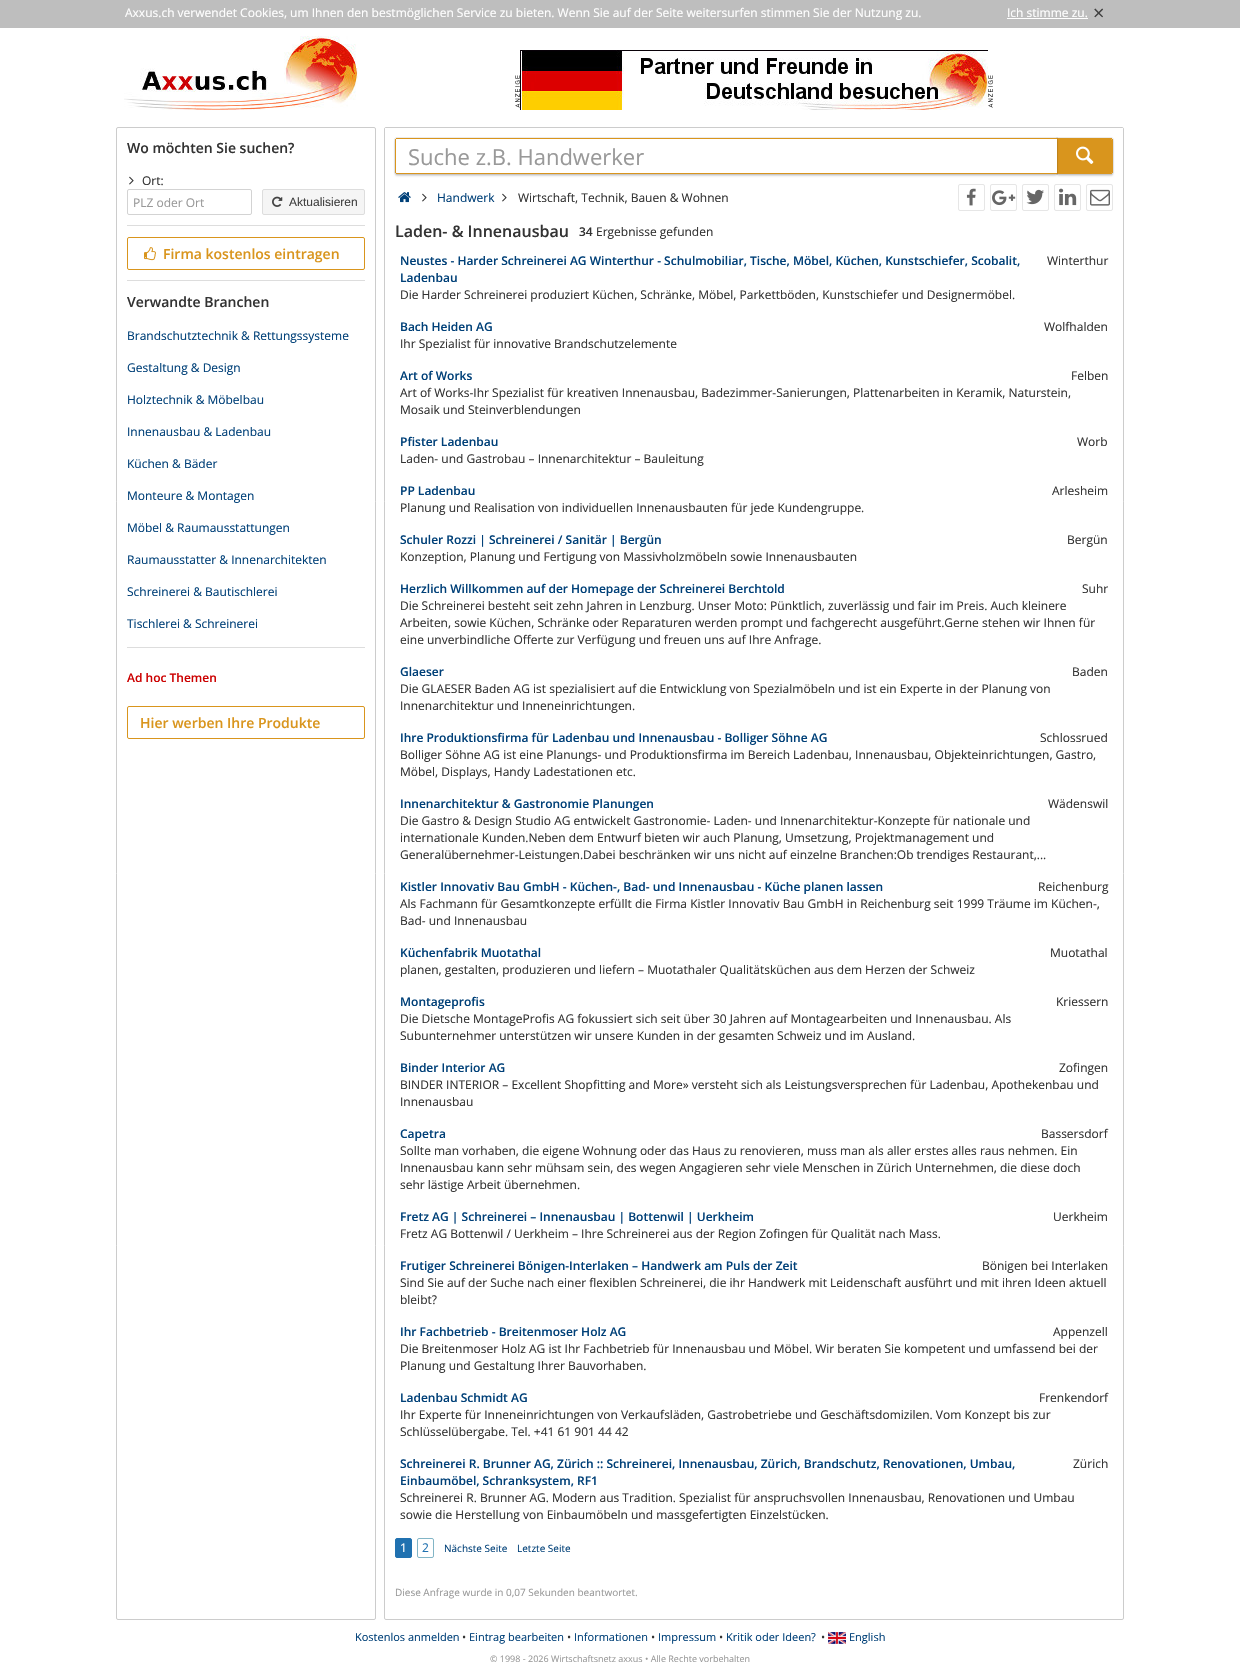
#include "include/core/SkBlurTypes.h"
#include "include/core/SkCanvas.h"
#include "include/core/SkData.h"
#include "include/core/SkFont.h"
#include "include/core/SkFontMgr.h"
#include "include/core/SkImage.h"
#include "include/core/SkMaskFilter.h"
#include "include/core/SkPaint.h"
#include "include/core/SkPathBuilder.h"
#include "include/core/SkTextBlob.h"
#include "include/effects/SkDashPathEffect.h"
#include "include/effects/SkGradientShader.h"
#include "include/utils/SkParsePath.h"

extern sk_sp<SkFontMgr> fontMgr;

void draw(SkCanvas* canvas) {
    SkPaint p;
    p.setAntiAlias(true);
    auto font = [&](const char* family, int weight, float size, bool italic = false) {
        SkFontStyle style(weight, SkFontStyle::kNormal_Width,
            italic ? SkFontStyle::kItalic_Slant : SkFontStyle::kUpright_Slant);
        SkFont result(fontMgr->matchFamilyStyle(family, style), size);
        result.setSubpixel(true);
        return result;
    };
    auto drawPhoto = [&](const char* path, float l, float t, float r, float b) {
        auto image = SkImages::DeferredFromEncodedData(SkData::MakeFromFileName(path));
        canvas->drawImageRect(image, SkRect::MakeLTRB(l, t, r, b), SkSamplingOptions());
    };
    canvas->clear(0xFFFFFFFF);
    p.setColor(0xFFBEBEBE);
    canvas->drawRect(SkRect::MakeLTRB(0, 0, 1240, 28), p);
    auto font1 = font("Open Sans", 400, 12);
    p.setColor(0xFFFFFFFF);
    canvas->drawString("Axxus.ch verwendet Cookies, um Ihnen den bestmöglichen Service zu bieten. Wenn Sie auf der Seite weitersurfen stimmen Sie der Nutzung zu.", 125, 17, font1, p);
    canvas->drawString("Ich stimme zu.", 1007, 17, font1, p);
    canvas->drawRect(SkRect::MakeLTRB(1007, 18, 1088, 19), p);
    auto font2 = font("Open Sans", 400, 20);
    p.setColor(0xFF404040);
    canvas->drawString("×", 1093, 20, font2, p);
    drawPhoto("media/1.png", 124, 36, 358, 110);
    drawPhoto("media/2.png", 515, 75, 520, 108);
    drawPhoto("media/3.png", 520, 50, 988, 110);
    drawPhoto("media/2.png", 988, 75, 993, 108);
    p.setStyle(SkPaint::kStroke_Style);
    p.setStrokeWidth(1);
    p.setColor(0xFFCCCCCC);
    canvas->drawRoundRect(SkRect::MakeLTRB(116.5f, 127.5f, 375.5f, 1619.5f), 1.5f, 1.5f, p);
    auto font3 = font("Open Sans", 600, 14);
    p.setStyle(SkPaint::kFill_Style);
    p.setColor(0xFF333333);
    canvas->drawString("Wo möchten Sie suchen?", 127, 153, font3, p);
    drawPhoto("media/4.png", 129, 176, 134, 185);
    canvas->drawString("Ort:", 142, 185, font1, p);
    p.setStyle(SkPaint::kStroke_Style);
    p.setColor(0xFFD3D3D3);
    canvas->drawRoundRect(SkRect::MakeLTRB(127.5f, 189.5f, 251.5f, 214.5f), 1.5f, 1.5f, p);
    p.setStyle(SkPaint::kFill_Style);
    p.setColor(0xFF999999);
    canvas->drawString("PLZ oder Ort", 133, 207, font1, p);
    p.setColor(0xFFF5F5F5);
    canvas->drawRoundRect(SkRect::MakeLTRB(262.5f, 189.5f, 364.5f, 214.5f), 1.5f, 1.5f, p);
    p.setStyle(SkPaint::kStroke_Style);
    p.setColor(0xFFDDDDDD);
    canvas->drawRoundRect(SkRect::MakeLTRB(262.5f, 189.5f, 364.5f, 214.5f), 1.5f, 1.5f, p);
    drawPhoto("media/5.png", 272, 196, 283, 207);
    auto font4 = font("Liberation Sans", 400, 12);
    p.setStyle(SkPaint::kFill_Style);
    p.setColor(0xFF404040);
    canvas->drawString("Aktualisieren", 289, 206, font4, p);
    p.setColor(0xFFDDDDDD);
    canvas->drawRect(SkRect::MakeLTRB(127, 225, 365, 226), p);
    p.setStyle(SkPaint::kStroke_Style);
    p.setColor(0xFFD9951D);
    canvas->drawRoundRect(SkRect::MakeLTRB(127.5f, 237.5f, 364.5f, 269.5f), 1.5f, 1.5f, p);
    drawPhoto("media/6.png", 144, 247, 156, 261);
    p.setStyle(SkPaint::kFill_Style);
    canvas->drawString("Firma kostenlos eintragen", 163, 259, font3, p);
    p.setColor(0xFFDDDDDD);
    canvas->drawRect(SkRect::MakeLTRB(127, 280, 365, 281), p);
    p.setColor(0xFF333333);
    canvas->drawString("Verwandte Branchen", 127, 307, font3, p);
    p.setColor(0xFF004078);
    {
        const struct { const char* s; float x, y; } items[] = {
            {"Brandschutztechnik & Rettungssysteme", 127, 340},
            {"Gestaltung & Design", 127, 372},
            {"Holztechnik & Möbelbau", 127, 404},
            {"Innenausbau & Ladenbau", 127, 436},
            {"Küchen & Bäder", 127, 468},
            {"Monteure & Montagen", 127, 500},
            {"Möbel & Raumausstattungen", 127, 532},
            {"Raumausstatter & Innenarchitekten", 127, 564},
            {"Schreinerei & Bautischlerei", 127, 596},
            {"Tischlerei & Schreinerei", 127, 628},
        };
        for (auto [s, x, y] : items) {
            canvas->drawString(s, x, y, font1, p);
        }
    }
    p.setColor(0xFFDDDDDD);
    canvas->drawRect(SkRect::MakeLTRB(127, 647, 365, 648), p);
    auto font5 = font("Open Sans", 600, 12);
    p.setColor(0xFFCC0000);
    canvas->drawString("Ad hoc Themen", 127, 682, font5, p);
    p.setStyle(SkPaint::kStroke_Style);
    p.setColor(0xFFD9951D);
    canvas->drawRoundRect(SkRect::MakeLTRB(127.5f, 706.5f, 364.5f, 738.5f), 1.5f, 1.5f, p);
    p.setStyle(SkPaint::kFill_Style);
    canvas->drawString("Hier werben Ihre Produkte", 140, 728, font3, p);
    p.setStyle(SkPaint::kStroke_Style);
    p.setColor(0xFFCCCCCC);
    canvas->drawRoundRect(SkRect::MakeLTRB(384.5f, 127.5f, 1123.5f, 1619.5f), 1.5f, 1.5f, p);
    p.setStyle(SkPaint::kFill_Style);
    p.setColor(0xFFFFFFFF);
    canvas->drawRect(SkRect::MakeLTRB(385, 128, 1123, 129), p);
    p.setStyle(SkPaint::kStroke_Style);
    p.setColor(0xFFEBEBEB);
    canvas->drawPath(SkPathBuilder().moveTo(1056.5f, 137.5f).lineTo(1111, 137.5f).cubicTo(1112.5f, 137.5f, 1113.5f, 138.5f, 1113.5f, 140).lineTo(1113.5f, 172).cubicTo(1113.5f, 173.5f, 1112.5f, 174.5f, 1111, 174.5f).lineTo(1056.5f, 174.5f).close().detach(), p);
    p.setStyle(SkPaint::kFill_Style);
    p.setColor(0x29000000);
    p.setMaskFilter(SkMaskFilter::MakeBlur(kNormal_SkBlurStyle, 1));
    canvas->drawRoundRect(SkRect::MakeLTRB(1057, 140, 1113, 176), 2, 2, p);
    p.setMaskFilter(nullptr);
    p.setColor(0xFFD9951D);
    canvas->drawPath(SkPathBuilder().moveTo(1057, 139).lineTo(1111, 139).cubicTo(1111.5f, 139, 1112, 139.5f, 1112, 140).lineTo(1112, 172).cubicTo(1112, 172.5f, 1111.5f, 173, 1111, 173).lineTo(1057, 173).close().detach(), p);
    canvas->drawRect(SkRect::MakeLTRB(1057, 138, 1112, 139), p);
    canvas->drawRect(SkRect::MakeLTRB(1057, 173, 1112, 174), p);
    p.setStyle(SkPaint::kStroke_Style);
    p.setColor(0x14000000);
    canvas->drawPath(SkPathBuilder().moveTo(397, 137.5f).lineTo(1057.5f, 137.5f).lineTo(1057.5f, 174.5f).lineTo(397, 174.5f).cubicTo(395.5f, 174.5f, 394.5f, 173.5f, 394.5f, 172).lineTo(394.5f, 140).cubicTo(394.5f, 138.5f, 395.5f, 137.5f, 397, 137.5f).close().detach(), p);
    p.setStyle(SkPaint::kFill_Style);
    p.setColor(0x29000000);
    p.setMaskFilter(SkMaskFilter::MakeBlur(kNormal_SkBlurStyle, 1));
    canvas->drawRoundRect(SkRect::MakeLTRB(395, 140, 1057, 176), 2, 2, p);
    p.setMaskFilter(nullptr);
    p.setColor(0xFFFFFFFF);
    canvas->drawPath(SkPathBuilder().moveTo(397, 139).lineTo(1057, 139).lineTo(1057, 173).lineTo(397, 173).cubicTo(396.5f, 173, 396, 172.5f, 396, 172).lineTo(396, 140).cubicTo(396, 139.5f, 396.5f, 139, 397, 139).close().detach(), p);
    {
        const struct { float l, t, r, b; SkColor color; } items[] = {
            {396, 138, 1057, 139, 0xFFD9951D},
            {396, 173, 1057, 174, 0xFFD9951D},
            {395, 139, 396, 173, 0xFFD9951D},
        };
        for (auto [l, t, r, b, color] : items) {
            p.setColor(color);
            canvas->drawRect(SkRect::MakeLTRB(l, t, r, b), p);
        }
    }
    auto font6 = font("Open Sans", 400, 22);
    p.setColor(0xFF999999);
    canvas->drawString("Suche z.B. Handwerker", 408, 165, font6, p);
    p.setColor(0xFFD9951D);
    canvas->drawRect(SkRect::MakeLTRB(1112, 139, 1113, 173), p);
    drawPhoto("media/7.png", 1076, 146, 1094, 164);
    drawPhoto("media/8.png", 398, 192, 411, 203);
    drawPhoto("media/4.png", 422, 193, 427, 202);
    p.setColor(0xFF004078);
    canvas->drawString("Handwerk", 437, 202, font1, p);
    drawPhoto("media/4.png", 502, 193, 507, 202);
    p.setColor(0xFF333333);
    canvas->drawString("Wirtschaft, Technik, Bauen & Wohnen", 518, 202, font1, p);
    p.setStyle(SkPaint::kStroke_Style);
    p.setColor(0xFFE6E6E6);
    canvas->drawRoundRect(SkRect::MakeLTRB(958.5f, 184.5f, 984.5f, 210.5f), 1.5f, 1.5f, p);
    drawPhoto("media/9.png", 966, 188, 976, 206);
    canvas->drawRoundRect(SkRect::MakeLTRB(990.5f, 184.5f, 1016.5f, 210.5f), 1.5f, 1.5f, p);
    drawPhoto("media/10.png", 992, 190, 1016, 206);
    canvas->drawRoundRect(SkRect::MakeLTRB(1022.5f, 184.5f, 1048.5f, 210.5f), 1.5f, 1.5f, p);
    drawPhoto("media/11.png", 1026, 189, 1044, 205);
    canvas->drawRoundRect(SkRect::MakeLTRB(1054.5f, 184.5f, 1080.5f, 210.5f), 1.5f, 1.5f, p);
    drawPhoto("media/12.png", 1059, 188, 1077, 206);
    canvas->drawRoundRect(SkRect::MakeLTRB(1086.5f, 184.5f, 1112.5f, 210.5f), 1.5f, 1.5f, p);
    drawPhoto("media/13.png", 1090, 189, 1110, 206);
    auto font7 = font("Open Sans", 600, 16);
    p.setStyle(SkPaint::kFill_Style);
    p.setColor(0xFF333333);
    canvas->drawString("Laden- & Innenausbau", 395, 237, font7, p);
    canvas->drawString("34", 579, 236, font5, p);
    canvas->drawString("Ergebnisse gefunden", 596, 236, font1, p);
    p.setColor(0xFF004078);
    canvas->drawString("Neustes - Harder Schreinerei AG Winterthur - Schulmobiliar, Tische, Möbel, Küchen, Kunstschiefer, Scobalit,", 400, 265, font5, p);
    canvas->drawString("Ladenbau", 400, 282, font5, p);
    p.setColor(0xFF333333);
    canvas->drawString("Winterthur", 1047, 265, font1, p);
    canvas->drawString("Die Harder Schreinerei produziert Küchen, Schränke, Möbel, Parkettböden, Kunstschiefer und Designermöbel.", 400, 299, font1, p);
    p.setColor(0xFF004078);
    canvas->drawString("Bach Heiden AG", 400, 331, font5, p);
    p.setColor(0xFF333333);
    canvas->drawString("Wolfhalden", 1044, 331, font1, p);
    canvas->drawString("Ihr Spezialist für innovative Brandschutzelemente", 400, 348, font1, p);
    p.setColor(0xFF004078);
    canvas->drawString("Art of Works", 400, 380, font5, p);
    p.setColor(0xFF333333);
    {
        const struct { const char* s; float x, y; } items[] = {
            {"Felben", 1071, 380},
            {"Art of Works-Ihr Spezialist für kreativen Innenausbau, Badezimmer-Sanierungen, Plattenarbeiten in Keramik, Naturstein,", 400, 397},
            {"Mosaik und Steinverblendungen", 400, 414},
        };
        for (auto [s, x, y] : items) {
            canvas->drawString(s, x, y, font1, p);
        }
    }
    p.setColor(0xFF004078);
    canvas->drawString("Pfister Ladenbau", 400, 446, font5, p);
    p.setColor(0xFF333333);
    canvas->drawString("Worb", 1077, 446, font1, p);
    canvas->drawString("Laden- und Gastrobau – Innenarchitektur – Bauleitung", 400, 463, font1, p);
    p.setColor(0xFF004078);
    canvas->drawString("PP Ladenbau", 400, 495, font5, p);
    p.setColor(0xFF333333);
    canvas->drawString("Arlesheim", 1052, 495, font1, p);
    canvas->drawString("Planung und Realisation von individuellen Innenausbauten für jede Kundengruppe.", 400, 512, font1, p);
    p.setColor(0xFF004078);
    canvas->drawString("Schuler Rozzi | Schreinerei / Sanitär | Bergün", 400, 544, font5, p);
    p.setColor(0xFF333333);
    canvas->drawString("Bergün", 1067, 544, font1, p);
    canvas->drawString("Konzeption, Planung und Fertigung von Massivholzmöbeln sowie Innenausbauten", 400, 561, font1, p);
    p.setColor(0xFF004078);
    canvas->drawString("Herzlich Willkommen auf der Homepage der Schreinerei Berchtold", 400, 593, font5, p);
    p.setColor(0xFF333333);
    {
        const struct { const char* s; float x, y; } items[] = {
            {"Suhr", 1082, 593},
            {"Die Schreinerei besteht seit zehn Jahren in Lenzburg. Unser Moto: Pünktlich, zuverlässig und fair im Preis. Auch kleinere", 400, 610},
            {"Arbeiten, sowie Küchen, Schränke oder Reparaturen werden prompt und fachgerecht ausgeführt.Gerne stehen wir Ihnen für", 400, 627},
            {"eine unverbindliche Offerte zur Verfügung und freuen uns auf Ihre Anfrage.", 400, 644},
        };
        for (auto [s, x, y] : items) {
            canvas->drawString(s, x, y, font1, p);
        }
    }
    p.setColor(0xFF004078);
    canvas->drawString("Glaeser", 400, 676, font5, p);
    p.setColor(0xFF333333);
    {
        const struct { const char* s; float x, y; } items[] = {
            {"Baden", 1072, 676},
            {"Die GLAESER Baden AG ist spezialisiert auf die Entwicklung von Spezialmöbeln und ist ein Experte in der Planung von", 400, 693},
            {"Innenarchitektur und Inneneinrichtungen.", 400, 710},
        };
        for (auto [s, x, y] : items) {
            canvas->drawString(s, x, y, font1, p);
        }
    }
    p.setColor(0xFF004078);
    canvas->drawString("Ihre Produktionsfirma für Ladenbau und Innenausbau - Bolliger Söhne AG", 400, 742, font5, p);
    p.setColor(0xFF333333);
    {
        const struct { const char* s; float x, y; } items[] = {
            {"Schlossrued", 1040, 742},
            {"Bolliger Söhne AG ist eine Planungs- und Produktionsfirma im Bereich Ladenbau, Innenausbau, Objekteinrichtungen, Gastro,", 400, 759},
            {"Möbel, Displays, Handy Ladestationen etc.", 400, 776},
        };
        for (auto [s, x, y] : items) {
            canvas->drawString(s, x, y, font1, p);
        }
    }
    p.setColor(0xFF004078);
    canvas->drawString("Innenarchitektur & Gastronomie Planungen", 400, 808, font5, p);
    p.setColor(0xFF333333);
    {
        const struct { const char* s; float x, y; } items[] = {
            {"Wädenswil", 1048, 808},
            {"Die Gastro & Design Studio AG entwickelt Gastronomie- Laden- und Innenarchitektur-Konzepte für nationale und", 400, 825},
            {"internationale Kunden.Neben dem Entwurf bieten wir auch Planung, Umsetzung, Projektmanagement und", 400, 842},
            {"Generalübernehmer-Leistungen.Dabei beschränken wir uns nicht auf einzelne Branchen:Ob trendiges Restaurant,...", 400, 859},
        };
        for (auto [s, x, y] : items) {
            canvas->drawString(s, x, y, font1, p);
        }
    }
    p.setColor(0xFF004078);
    canvas->drawString("Kistler Innovativ Bau GmbH - Küchen-, Bad- und Innenausbau - Küche planen lassen", 400, 891, font5, p);
    p.setColor(0xFF333333);
    {
        const struct { const char* s; float x, y; } items[] = {
            {"Reichenburg", 1038, 891},
            {"Als Fachmann für Gesamtkonzepte erfüllt die Firma Kistler Innovativ Bau GmbH in Reichenburg seit 1999 Träume im Küchen-,", 400, 908},
            {"Bad- und Innenausbau", 400, 925},
        };
        for (auto [s, x, y] : items) {
            canvas->drawString(s, x, y, font1, p);
        }
    }
    p.setColor(0xFF004078);
    canvas->drawString("Küchenfabrik Muotathal", 400, 957, font5, p);
    p.setColor(0xFF333333);
    canvas->drawString("Muotathal", 1050, 957, font1, p);
    canvas->drawString("planen, gestalten, produzieren und liefern – Muotathaler Qualitätsküchen aus dem Herzen der Schweiz", 400, 974, font1, p);
    p.setColor(0xFF004078);
    canvas->drawString("Montageprofis", 400, 1006, font5, p);
    p.setColor(0xFF333333);
    {
        const struct { const char* s; float x, y; } items[] = {
            {"Kriessern", 1056, 1006},
            {"Die Dietsche MontageProfis AG fokussiert sich seit über 30 Jahren auf Montagearbeiten und Innenausbau. Als", 400, 1023},
            {"Subunternehmer unterstützen wir unsere Kunden in der gesamten Schweiz und im Ausland.", 400, 1040},
        };
        for (auto [s, x, y] : items) {
            canvas->drawString(s, x, y, font1, p);
        }
    }
    p.setColor(0xFF004078);
    canvas->drawString("Binder Interior AG", 400, 1072, font5, p);
    p.setColor(0xFF333333);
    {
        const struct { const char* s; float x, y; } items[] = {
            {"Zofingen", 1059, 1072},
            {"BINDER INTERIOR – Excellent Shopfitting and More» versteht sich als Leistungsversprechen für Ladenbau, Apothekenbau und", 400, 1089},
            {"Innenausbau", 400, 1106},
        };
        for (auto [s, x, y] : items) {
            canvas->drawString(s, x, y, font1, p);
        }
    }
    p.setColor(0xFF004078);
    canvas->drawString("Capetra", 400, 1138, font5, p);
    p.setColor(0xFF333333);
    {
        const struct { const char* s; float x, y; } items[] = {
            {"Bassersdorf", 1041, 1138},
            {"Sollte man vorhaben, die eigene Wohnung oder das Haus zu renovieren, muss man als aller erstes alles raus nehmen. Ein", 400, 1155},
            {"Innenausbau kann sehr mühsam sein, des wegen Angagieren sehr viele Menschen in Zürich Unternehmen, die diese doch", 400, 1172},
            {"sehr lästige Arbeit übernehmen.", 400, 1189},
        };
        for (auto [s, x, y] : items) {
            canvas->drawString(s, x, y, font1, p);
        }
    }
    p.setColor(0xFF004078);
    canvas->drawString("Fretz AG | Schreinerei – Innenausbau | Bottenwil | Uerkheim", 400, 1221, font5, p);
    p.setColor(0xFF333333);
    canvas->drawString("Uerkheim", 1053, 1221, font1, p);
    canvas->drawString("Fretz AG Bottenwil / Uerkheim – Ihre Schreinerei aus der Region Zofingen für Qualität nach Mass.", 400, 1238, font1, p);
    p.setColor(0xFF004078);
    canvas->drawString("Frutiger Schreinerei Bönigen-Interlaken – Handwerk am Puls der Zeit", 400, 1270, font5, p);
    p.setColor(0xFF333333);
    {
        const struct { const char* s; float x, y; } items[] = {
            {"Bönigen bei Interlaken", 982, 1270},
            {"Sind Sie auf der Suche nach einer flexiblen Schreinerei, die ihr Handwerk mit Leidenschaft ausführt und mit ihren Ideen aktuell", 400, 1287},
            {"bleibt?", 400, 1304},
        };
        for (auto [s, x, y] : items) {
            canvas->drawString(s, x, y, font1, p);
        }
    }
    p.setColor(0xFF004078);
    canvas->drawString("Ihr Fachbetrieb - Breitenmoser Holz AG", 400, 1336, font5, p);
    p.setColor(0xFF333333);
    {
        const struct { const char* s; float x, y; } items[] = {
            {"Appenzell", 1053, 1336},
            {"Die Breitenmoser Holz AG ist Ihr Fachbetrieb für Innenausbau und Möbel. Wir beraten Sie kompetent und umfassend bei der", 400, 1353},
            {"Planung und Gestaltung Ihrer Bauvorhaben.", 400, 1370},
        };
        for (auto [s, x, y] : items) {
            canvas->drawString(s, x, y, font1, p);
        }
    }
    p.setColor(0xFF004078);
    canvas->drawString("Ladenbau Schmidt AG", 400, 1402, font5, p);
    p.setColor(0xFF333333);
    {
        const struct { const char* s; float x, y; } items[] = {
            {"Frenkendorf", 1039, 1402},
            {"Ihr Experte für Inneneinrichtungen von Verkaufsläden, Gastrobetriebe und Geschäftsdomizilen. Vom Konzept bis zur", 400, 1419},
            {"Schlüsselübergabe. Tel. +41 61 901 44 42", 400, 1436},
        };
        for (auto [s, x, y] : items) {
            canvas->drawString(s, x, y, font1, p);
        }
    }
    p.setColor(0xFF004078);
    canvas->drawString("Schreinerei R. Brunner AG, Zürich :: Schreinerei, Innenausbau, Zürich, Brandschutz, Renovationen, Umbau,", 400, 1468, font5, p);
    canvas->drawString("Einbaumöbel, Schranksystem, RF1", 400, 1485, font5, p);
    p.setColor(0xFF333333);
    {
        const struct { const char* s; float x, y; } items[] = {
            {"Zürich", 1073, 1468},
            {"Schreinerei R. Brunner AG. Modern aus Tradition. Spezialist für anspruchsvollen Innenausbau, Renovationen und Umbau", 400, 1502},
            {"sowie die Herstellung von Einbaumöbeln und massgefertigten Einzelstücken.", 400, 1519},
        };
        for (auto [s, x, y] : items) {
            canvas->drawString(s, x, y, font1, p);
        }
    }
    p.setColor(0xFF2071B0);
    canvas->drawRoundRect(SkRect::MakeLTRB(395.5f, 1538.5f, 411.5f, 1557.5f), 1.5f, 1.5f, p);
    p.setStyle(SkPaint::kStroke_Style);
    canvas->drawRoundRect(SkRect::MakeLTRB(395.5f, 1538.5f, 411.5f, 1557.5f), 1.5f, 1.5f, p);
    p.setStyle(SkPaint::kFill_Style);
    p.setColor(0xFFFFFFFF);
    canvas->drawString("1", 400, 1552, font1, p);
    p.setStyle(SkPaint::kStroke_Style);
    p.setColor(0xFF82B5C6);
    canvas->drawRoundRect(SkRect::MakeLTRB(417.5f, 1538.5f, 433.5f, 1557.5f), 1.5f, 1.5f, p);
    p.setStyle(SkPaint::kFill_Style);
    p.setColor(0xFF2071B0);
    canvas->drawString("2", 422, 1552, font1, p);
    auto font8 = font("Open Sans", 400, 10);
    p.setColor(0xFF004078);
    canvas->drawString("Nächste Seite", 444, 1552, font8, p);
    canvas->drawString("Letzte Seite", 517, 1552, font8, p);
    p.setColor(0xFF999999);
    canvas->drawString("Diese Anfrage wurde in 0,07 Sekunden beantwortet.", 395, 1596, font8, p);
    auto font9 = font("Open Sans", 400, 11);
    p.setColor(0xFF004078);
    canvas->drawString("Kostenlos anmelden", 355, 1641, font9, p);
    p.setColor(0xFF333333);
    canvas->drawString("•", 462, 1641, font9, p);
    p.setColor(0xFF004078);
    canvas->drawString("Eintrag bearbeiten", 469, 1641, font9, p);
    p.setColor(0xFF333333);
    canvas->drawString("•", 567, 1641, font9, p);
    p.setColor(0xFF004078);
    canvas->drawString("Informationen", 574, 1641, font9, p);
    p.setColor(0xFF333333);
    canvas->drawString("•", 651, 1641, font9, p);
    p.setColor(0xFF004078);
    canvas->drawString("Impressum", 658, 1641, font9, p);
    p.setColor(0xFF333333);
    canvas->drawString("•", 719, 1641, font9, p);
    p.setColor(0xFF004078);
    canvas->drawString("Kritik oder Ideen?", 726, 1641, font9, p);
    p.setColor(0xFF333333);
    canvas->drawString("•", 821, 1641, font9, p);
    drawPhoto("media/14.png", 828, 1632, 846, 1644);
    p.setColor(0xFF004078);
    canvas->drawString("English", 849, 1641, font9, p);
    auto font10 = font("Open Sans", 400, 9);
    p.setColor(0xFF999999);
    canvas->drawString("© 1998 - 2026 Wirtschaftsnetz axxus • Alle Rechte vorbehalten", 490, 1662, font10, p);
}
